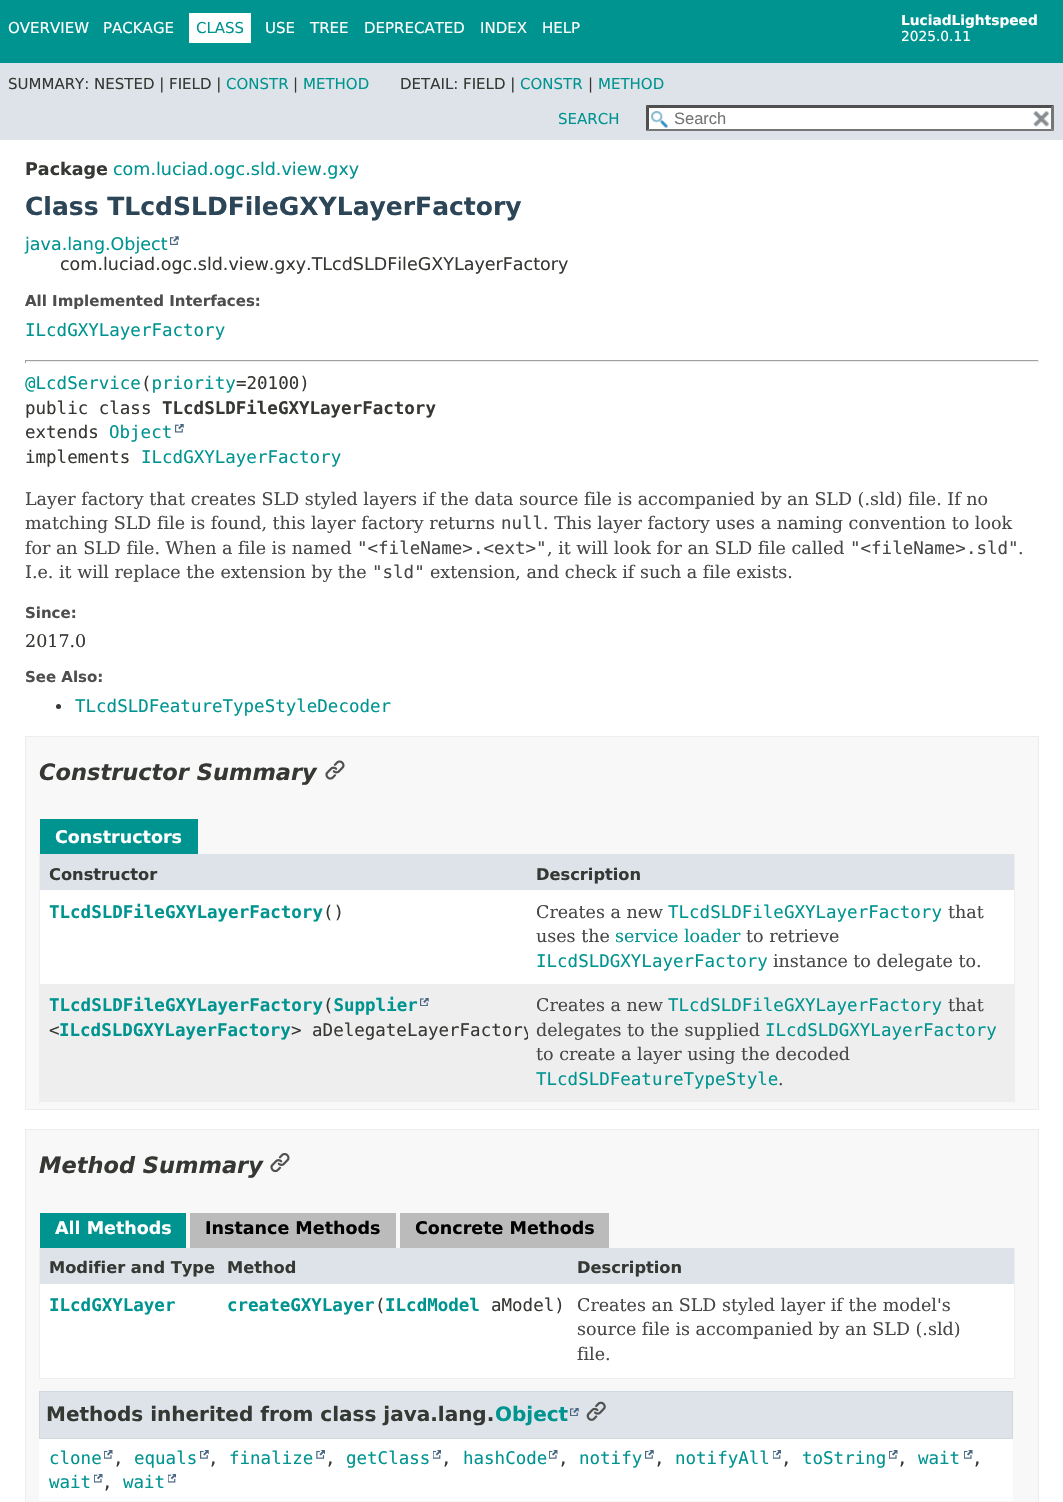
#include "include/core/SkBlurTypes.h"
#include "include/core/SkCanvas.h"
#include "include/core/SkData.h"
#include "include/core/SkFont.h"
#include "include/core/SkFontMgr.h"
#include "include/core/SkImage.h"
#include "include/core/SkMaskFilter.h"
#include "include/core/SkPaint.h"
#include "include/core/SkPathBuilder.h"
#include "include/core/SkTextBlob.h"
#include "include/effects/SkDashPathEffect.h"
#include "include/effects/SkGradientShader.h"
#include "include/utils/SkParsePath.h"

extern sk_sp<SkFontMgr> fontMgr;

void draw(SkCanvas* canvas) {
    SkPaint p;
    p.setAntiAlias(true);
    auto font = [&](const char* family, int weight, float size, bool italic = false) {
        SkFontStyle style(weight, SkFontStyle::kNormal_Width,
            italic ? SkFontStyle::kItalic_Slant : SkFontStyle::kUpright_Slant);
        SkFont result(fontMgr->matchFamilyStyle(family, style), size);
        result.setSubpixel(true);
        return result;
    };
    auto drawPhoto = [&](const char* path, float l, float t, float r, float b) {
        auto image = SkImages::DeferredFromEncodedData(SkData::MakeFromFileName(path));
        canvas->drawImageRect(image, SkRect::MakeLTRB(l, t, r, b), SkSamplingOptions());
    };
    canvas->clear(0xFFFFFFFF);
    p.setColor(0xFF009490);
    canvas->drawRect(SkRect::MakeLTRB(0, 0, 1063, 63), p);
    auto font1 = font("DejaVu Sans", 400, 15);
    p.setColor(0xFFFFFFFF);
    canvas->drawString("OVERVIEW", 8, 33, font1, p);
    canvas->drawString("PACKAGE", 103, 33, font1, p);
    canvas->drawRect(SkRect::MakeLTRB(189, 13, 251, 43), p);
    p.setColor(0xFF009490);
    canvas->drawString("CLASS", 196, 33, font1, p);
    p.setColor(0xFFFFFFFF);
    {
        const struct { const char* s; float x, y; } items[] = {
            {"USE", 265, 33},
            {"TREE", 310, 33},
            {"DEPRECATED", 364, 33},
            {"INDEX", 480, 33},
            {"HELP", 542, 33},
        };
        for (auto [s, x, y] : items) {
            canvas->drawString(s, x, y, font1, p);
        }
    }
    auto font2 = font("DejaVu Sans", 700, 13.75f);
    canvas->drawString("LuciadLightspeed", 901, 25, font2, p);
    auto font3 = font("DejaVu Sans", 400, 13.75f);
    canvas->drawString("2025.0.11", 901, 41, font3, p);
    p.setColor(0xFFDEE3E9);
    canvas->drawRect(SkRect::MakeLTRB(0, 63, 1063, 140), p);
    p.setColor(0xFF353833);
    canvas->drawString("SUMMARY: NESTED | FIELD |", 8, 89, font1, p);
    p.setColor(0xFF009490);
    canvas->drawString("CONSTR", 226, 89, font1, p);
    p.setColor(0xFF353833);
    canvas->drawString("|", 293, 89, font1, p);
    p.setColor(0xFF009490);
    canvas->drawString("METHOD", 303, 89, font1, p);
    p.setColor(0xFF353833);
    canvas->drawString("DETAIL: FIELD |", 400, 89, font1, p);
    p.setColor(0xFF009490);
    canvas->drawString("CONSTR", 520, 89, font1, p);
    p.setColor(0xFF353833);
    canvas->drawString("|", 588, 89, font1, p);
    p.setColor(0xFF009490);
    canvas->drawString("METHOD", 598, 89, font1, p);
    canvas->drawString("SEARCH", 558, 124, font1, p);
    p.setColor(0xFFFFFFFF);
    canvas->drawRect(SkRect::MakeLTRB(646, 105, 1054, 131), p);
    drawPhoto("media/1.png", 651, 111, 668, 128);
    p.setColor(0xFF4F4F4F);
    canvas->drawPath(SkPathBuilder().moveTo(646, 105).lineTo(1054, 105).lineTo(1051, 108).lineTo(649, 108).close().detach(), p);
    p.setColor(0xFF767676);
    canvas->drawPath(SkPathBuilder().moveTo(1054, 105).lineTo(1054, 131).lineTo(1051, 129).lineTo(1051, 107.5f).close().detach(), p);
    canvas->drawPath(SkPathBuilder().moveTo(1054, 131).lineTo(646, 131).lineTo(649, 129).lineTo(1051, 129).close().detach(), p);
    p.setColor(0xFF4F4F4F);
    canvas->drawPath(SkPathBuilder().moveTo(646, 131).lineTo(646, 105).lineTo(649, 107.5f).lineTo(649, 129).close().detach(), p);
    auto font4 = font("Liberation Sans", 400, 16.5f);
    p.setColor(0xFF757575);
    canvas->drawString("Search", 674, 124, font4, p);
    drawPhoto("media/2.png", 1033, 111, 1050, 127);
    auto font5 = font("DejaVu Sans", 700, 17.5f);
    p.setColor(0xFF353833);
    canvas->drawString("Package", 25, 175, font5, p);
    auto font6 = font("DejaVu Sans", 400, 17.5f);
    p.setColor(0xFF009490);
    canvas->drawString("com.luciad.ogc.sld.view.gxy", 113, 175, font6, p);
    auto font7 = font("DejaVu Sans", 700, 25);
    p.setColor(0xFF2C4557);
    canvas->drawString("Class TLcdSLDFileGXYLayerFactory", 25, 215, font7, p);
    p.setColor(0xFF009490);
    canvas->drawString("java.lang.Object", 25, 250, font6, p);
    drawPhoto("media/3.png", 170, 236, 179, 245);
    p.setColor(0xFF353833);
    canvas->drawString("com.luciad.ogc.sld.view.gxy.TLcdSLDFileGXYLayerFactory", 60, 270, font6, p);
    auto font8 = font("DejaVu Sans", 700, 15);
    p.setColor(0xFF4E4E4E);
    canvas->drawString("All Implemented Interfaces:", 25, 306, font8, p);
    auto font9 = font("DejaVu Sans Mono", 400, 17.5f);
    p.setColor(0xFF009490);
    canvas->drawString("ILcdGXYLayerFactory", 25, 336, font9, p);
    {
        const struct { float l, t, r, b; SkColor color; } items[] = {
            {25, 360, 1039, 361, 0xFF9F9F9F},
            {1038, 360, 1039, 363, 0xFFEEEEEE},
            {25, 361, 1039, 362, 0xFFEEEEEE},
            {25, 360, 26, 363, 0xFF9F9F9F},
        };
        for (auto [l, t, r, b, color] : items) {
            p.setColor(color);
            canvas->drawRect(SkRect::MakeLTRB(l, t, r, b), p);
        }
    }
    p.setColor(0xFF009490);
    canvas->drawString("@LcdService priority", 25, 389, font9, p);
    p.setColor(0xFF353833);
    {
        const struct { const char* s; float x, y; } items[] = {
            {"(", 141, 389},
            {"=20100)", 236, 389},
            {"public class", 25, 414},
        };
        for (auto [s, x, y] : items) {
            canvas->drawString(s, x, y, font9, p);
        }
    }
    auto font10 = font("DejaVu Sans Mono", 700, 17.5f);
    canvas->drawString("TLcdSLDFileGXYLayerFactory", 162, 414, font10, p);
    canvas->drawString("extends", 25, 438, font9, p);
    p.setColor(0xFF009490);
    canvas->drawString("Object", 109, 438, font9, p);
    drawPhoto("media/4.png", 175, 424, 184, 433);
    p.setColor(0xFF353833);
    canvas->drawString("implements", 25, 463, font9, p);
    p.setColor(0xFF009490);
    canvas->drawString("ILcdGXYLayerFactory", 141, 463, font9, p);
    auto font11 = font("DejaVu Serif", 400, 17.5f);
    p.setColor(0xFF474747);
    canvas->drawString("Layer factory that creates SLD styled layers if the data source file is accompanied by an SLD (.sld) file. If no", 25, 505, font11, p);
    canvas->drawString("matching SLD file is found, this layer factory returns", 25, 529, font11, p);
    canvas->drawString("null", 501, 529, font9, p);
    canvas->drawString(". This layer factory uses a naming convention to look", 543, 529, font11, p);
    canvas->drawString("for an SLD file. When a file is named", 25, 554, font11, p);
    canvas->drawString("\"<fileName>.<ext>\"", 357, 554, font9, p);
    canvas->drawString(", it will look for an SLD file called", 547, 554, font11, p);
    canvas->drawString("\"<fileName>.sld\"", 850, 554, font9, p);
    canvas->drawString(".", 1018, 554, font11, p);
    canvas->drawString("I.e. it will replace the extension by the", 25, 578, font11, p);
    canvas->drawString("\"sld\"", 372, 578, font9, p);
    canvas->drawString("extension, and check if such a file exists.", 430, 578, font11, p);
    p.setColor(0xFF4E4E4E);
    canvas->drawString("Since:", 25, 618, font8, p);
    p.setColor(0xFF353833);
    canvas->drawString("2017.0", 25, 647, font11, p);
    p.setColor(0xFF4E4E4E);
    canvas->drawString("See Also:", 25, 682, font8, p);
    p.setColor(0xFF353833);
    canvas->drawCircle(58.5f, 706.5f, 2.5f, p);
    p.setColor(0xFF009490);
    canvas->drawString("TLcdSLDFeatureTypeStyleDecoder", 75, 712, font9, p);
    p.setColor(0xFFF8F8F8);
    canvas->drawRect(SkRect::MakeLTRB(25.5f, 736.5f, 1038.5f, 1109.5f), p);
    p.setStyle(SkPaint::kStroke_Style);
    p.setStrokeWidth(1);
    p.setColor(0xFFEDEDED);
    canvas->drawRect(SkRect::MakeLTRB(25.5f, 736.5f, 1038.5f, 1109.5f), p);
    auto font12 = font("DejaVu Sans", 700, 22.5f, true);
    p.setStyle(SkPaint::kFill_Style);
    p.setColor(0xFF353833);
    canvas->drawString("Constructor Summary", 39, 780, font12, p);
    drawPhoto("media/5.png", 325, 760, 345, 780);
    p.setColor(0xFF009490);
    canvas->drawRect(SkRect::MakeLTRB(40, 819, 198, 854), p);
    p.setColor(0xFFFFFFFF);
    canvas->drawString("Constructors", 55, 843, font5, p);
    {
        const struct { float l, t, r, b; SkColor color; } items[] = {
            {1014, 854, 1015, 1103, 0xFFEEEEEE},
            {39, 1101, 1015, 1102, 0xFFEEEEEE},
            {39, 854, 40, 1103, 0xFFEEEEEE},
            {40, 854, 1014, 890, 0xFFDEE3E9},
        };
        for (auto [l, t, r, b, color] : items) {
            p.setColor(color);
            canvas->drawRect(SkRect::MakeLTRB(l, t, r, b), p);
        }
    }
    auto font13 = font("DejaVu Sans", 700, 16.25f);
    p.setColor(0xFF353833);
    canvas->drawString("Constructor", 49, 880, font13, p);
    canvas->drawString("Description", 536, 880, font13, p);
    p.setColor(0xFFFFFFFF);
    canvas->drawRect(SkRect::MakeLTRB(40, 890, 1014, 984), p);
    p.setColor(0xFF009490);
    canvas->drawString("TLcdSLDFileGXYLayerFactory", 49, 918, font10, p);
    p.setColor(0xFF353833);
    canvas->drawString("()", 323, 918, font9, p);
    p.setColor(0xFF474747);
    canvas->drawString("Creates a new", 536, 918, font11, p);
    p.setColor(0xFF009490);
    canvas->drawString("TLcdSLDFileGXYLayerFactory", 668, 918, font9, p);
    p.setColor(0xFF474747);
    canvas->drawString("that", 948, 918, font11, p);
    canvas->drawString("uses the", 536, 942, font11, p);
    p.setColor(0xFF009490);
    canvas->drawString("service loader", 615, 942, font11, p);
    p.setColor(0xFF474747);
    canvas->drawString("to retrieve", 746, 942, font11, p);
    p.setColor(0xFF009490);
    canvas->drawString("ILcdSLDGXYLayerFactory", 536, 967, font9, p);
    p.setColor(0xFF474747);
    canvas->drawString("instance to delegate to.", 773, 967, font11, p);
    p.setColor(0xFFEEEEEF);
    canvas->drawRect(SkRect::MakeLTRB(40, 984, 1014, 1101), p);
    p.setColor(0xFF009490);
    canvas->drawString("TLcdSLDFileGXYLayerFactory Supplier", 49, 1011, font10, p);
    p.setColor(0xFF353833);
    canvas->drawString("(", 323, 1011, font9, p);
    drawPhoto("media/6.png", 420, 998, 429, 1006);
    canvas->drawString("<", 49, 1036, font9, p);
    p.setColor(0xFF009490);
    canvas->drawString("ILcdSLDGXYLayerFactory", 59, 1036, font10, p);
    canvas->save();
    canvas->clipRect(SkRect::MakeLTRB(40, 984, 528, 1101));
    p.setColor(0xFF353833);
    canvas->drawString("> aDelegateLayerFactory", 291, 1036, font9, p);
    canvas->restore();
    p.setColor(0xFF474747);
    canvas->drawString("Creates a new", 536, 1011, font11, p);
    p.setColor(0xFF009490);
    canvas->drawString("TLcdSLDFileGXYLayerFactory", 668, 1011, font9, p);
    p.setColor(0xFF474747);
    canvas->drawString("that", 948, 1011, font11, p);
    canvas->drawString("delegates to the supplied", 536, 1036, font11, p);
    p.setColor(0xFF009490);
    canvas->drawString("ILcdSLDGXYLayerFactory", 765, 1036, font9, p);
    p.setColor(0xFF474747);
    canvas->drawString("to create a layer using the decoded", 536, 1060, font11, p);
    p.setColor(0xFF009490);
    canvas->drawString("TLcdSLDFeatureTypeStyle", 536, 1085, font9, p);
    p.setColor(0xFF474747);
    canvas->drawString(".", 778, 1085, font11, p);
    p.setColor(0xFFF8F8F8);
    canvas->drawRect(SkRect::MakeLTRB(25.5f, 1129.5f, 1038.5f, 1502.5f), p);
    p.setStyle(SkPaint::kStroke_Style);
    p.setColor(0xFFEDEDED);
    canvas->drawRect(SkRect::MakeLTRB(25.5f, 1129.5f, 1038.5f, 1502.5f), p);
    p.setStyle(SkPaint::kFill_Style);
    p.setColor(0xFF353833);
    canvas->drawString("Method Summary", 39, 1173, font12, p);
    drawPhoto("media/7.png", 270, 1153, 290, 1173);
    p.setColor(0xFF009490);
    canvas->drawRect(SkRect::MakeLTRB(40, 1213, 186, 1248), p);
    p.setColor(0xFFFFFFFF);
    canvas->drawString("All Methods", 55, 1234, font5, p);
    p.setColor(0xFFBBBBBB);
    canvas->drawRect(SkRect::MakeLTRB(190, 1213, 396, 1248), p);
    p.setColor(0xFF000000);
    canvas->drawString("Instance Methods", 205, 1234, font5, p);
    p.setColor(0xFFBBBBBB);
    canvas->drawRect(SkRect::MakeLTRB(400, 1213, 609, 1248), p);
    p.setColor(0xFF000000);
    canvas->drawString("Concrete Methods", 415, 1234, font5, p);
    {
        const struct { float l, t, r, b; SkColor color; } items[] = {
            {1014, 1248, 1015, 1379, 0xFFEEEEEE},
            {39, 1378, 1015, 1379, 0xFFEEEEEE},
            {39, 1248, 40, 1379, 0xFFEEEEEE},
            {40, 1248, 569, 1284, 0xFFDEE3E9},
        };
        for (auto [l, t, r, b, color] : items) {
            p.setColor(color);
            canvas->drawRect(SkRect::MakeLTRB(l, t, r, b), p);
        }
    }
    p.setColor(0xFF353833);
    canvas->drawString("Modifier and Type", 49, 1273, font13, p);
    canvas->drawString("Method", 227, 1273, font13, p);
    p.setColor(0xFFDEE3E9);
    canvas->drawRect(SkRect::MakeLTRB(569, 1248, 1014, 1284), p);
    p.setColor(0xFF353833);
    canvas->drawString("Description", 577, 1273, font13, p);
    p.setColor(0xFFFFFFFF);
    canvas->drawRect(SkRect::MakeLTRB(40, 1284, 569, 1378), p);
    p.setColor(0xFF009490);
    canvas->drawString("ILcdGXYLayer", 49, 1311, font10, p);
    canvas->drawString("createGXYLayer ILcdModel", 227, 1311, font10, p);
    p.setColor(0xFF353833);
    canvas->drawString("(", 375, 1311, font9, p);
    canvas->drawString("aModel)", 491, 1311, font9, p);
    p.setColor(0xFFFFFFFF);
    canvas->drawRect(SkRect::MakeLTRB(569, 1284, 1014, 1378), p);
    p.setColor(0xFF474747);
    {
        const struct { const char* s; float x, y; } items[] = {
            {"Creates an SLD styled layer if the model's", 577, 1311},
            {"source file is accompanied by an SLD (.sld)", 577, 1335},
            {"file.", 577, 1360},
        };
        for (auto [s, x, y] : items) {
            canvas->drawString(s, x, y, font11, p);
        }
    }
    p.setColor(0xFFFFFFFF);
    canvas->drawRect(SkRect::MakeLTRB(39, 1439, 1013, 1501), p);
    p.setColor(0xFFDEE3E9);
    canvas->drawRect(SkRect::MakeLTRB(39.5f, 1391.5f, 1012.5f, 1438.5f), p);
    p.setStyle(SkPaint::kStroke_Style);
    p.setColor(0xFFD0D9E0);
    canvas->drawRect(SkRect::MakeLTRB(39.5f, 1391.5f, 1012.5f, 1438.5f), p);
    auto font14 = font("DejaVu Sans", 700, 20);
    p.setStyle(SkPaint::kFill_Style);
    p.setColor(0xFF353833);
    canvas->drawString("Methods inherited from class java.lang.", 46, 1421, font14, p);
    p.setColor(0xFF009490);
    canvas->drawString("Object", 495, 1421, font14, p);
    drawPhoto("media/8.png", 570, 1408, 579, 1416);
    drawPhoto("media/9.png", 586, 1401, 606, 1421);
    canvas->drawString("clone", 49, 1464, font9, p);
    drawPhoto("media/10.png", 104, 1450, 113, 1459);
    p.setColor(0xFF353833);
    canvas->drawString(",", 113, 1464, font9, p);
    p.setColor(0xFF009490);
    canvas->drawString("equals", 134, 1464, font9, p);
    drawPhoto("media/11.png", 200, 1450, 209, 1459);
    p.setColor(0xFF353833);
    canvas->drawString(",", 208, 1464, font9, p);
    p.setColor(0xFF009490);
    canvas->drawString("finalize", 229, 1464, font9, p);
    drawPhoto("media/12.png", 316, 1450, 325, 1459);
    p.setColor(0xFF353833);
    canvas->drawString(",", 325, 1464, font9, p);
    p.setColor(0xFF009490);
    canvas->drawString("getClass", 346, 1464, font9, p);
    drawPhoto("media/13.png", 433, 1450, 441, 1459);
    p.setColor(0xFF353833);
    canvas->drawString(",", 441, 1464, font9, p);
    p.setColor(0xFF009490);
    canvas->drawString("hashCode", 463, 1464, font9, p);
    drawPhoto("media/10.png", 549, 1450, 558, 1459);
    p.setColor(0xFF353833);
    canvas->drawString(",", 558, 1464, font9, p);
    p.setColor(0xFF009490);
    canvas->drawString("notify", 579, 1464, font9, p);
    drawPhoto("media/11.png", 645, 1450, 654, 1459);
    p.setColor(0xFF353833);
    canvas->drawString(",", 654, 1464, font9, p);
    p.setColor(0xFF009490);
    canvas->drawString("notifyAll", 675, 1464, font9, p);
    drawPhoto("media/13.png", 773, 1450, 781, 1459);
    p.setColor(0xFF353833);
    canvas->drawString(",", 781, 1464, font9, p);
    p.setColor(0xFF009490);
    canvas->drawString("toString", 802, 1464, font9, p);
    drawPhoto("media/10.png", 889, 1450, 898, 1459);
    p.setColor(0xFF353833);
    canvas->drawString(",", 897, 1464, font9, p);
    p.setColor(0xFF009490);
    canvas->drawString("wait", 918, 1464, font9, p);
    drawPhoto("media/10.png", 964, 1450, 973, 1459);
    p.setColor(0xFF353833);
    canvas->drawString(",", 972, 1464, font9, p);
    p.setColor(0xFF009490);
    canvas->drawString("wait", 49, 1488, font9, p);
    drawPhoto("media/14.png", 94, 1474, 103, 1483);
    p.setColor(0xFF353833);
    canvas->drawString(",", 102, 1488, font9, p);
    p.setColor(0xFF009490);
    canvas->drawString("wait", 123, 1488, font9, p);
    drawPhoto("media/15.png", 168, 1474, 176, 1483);
}
